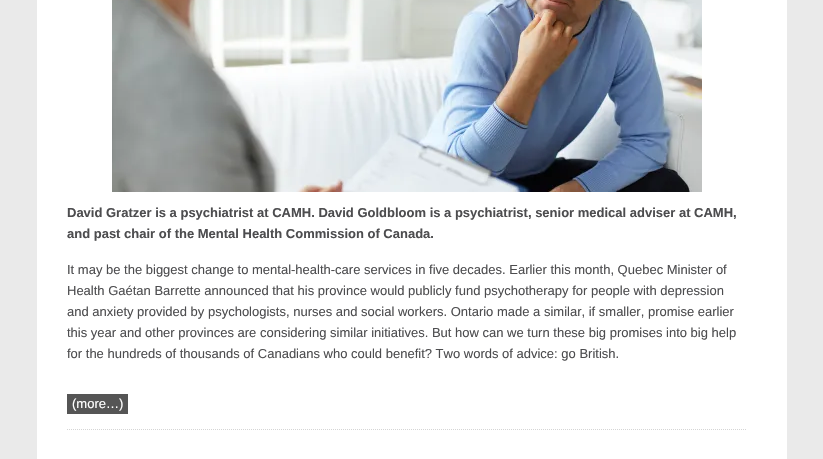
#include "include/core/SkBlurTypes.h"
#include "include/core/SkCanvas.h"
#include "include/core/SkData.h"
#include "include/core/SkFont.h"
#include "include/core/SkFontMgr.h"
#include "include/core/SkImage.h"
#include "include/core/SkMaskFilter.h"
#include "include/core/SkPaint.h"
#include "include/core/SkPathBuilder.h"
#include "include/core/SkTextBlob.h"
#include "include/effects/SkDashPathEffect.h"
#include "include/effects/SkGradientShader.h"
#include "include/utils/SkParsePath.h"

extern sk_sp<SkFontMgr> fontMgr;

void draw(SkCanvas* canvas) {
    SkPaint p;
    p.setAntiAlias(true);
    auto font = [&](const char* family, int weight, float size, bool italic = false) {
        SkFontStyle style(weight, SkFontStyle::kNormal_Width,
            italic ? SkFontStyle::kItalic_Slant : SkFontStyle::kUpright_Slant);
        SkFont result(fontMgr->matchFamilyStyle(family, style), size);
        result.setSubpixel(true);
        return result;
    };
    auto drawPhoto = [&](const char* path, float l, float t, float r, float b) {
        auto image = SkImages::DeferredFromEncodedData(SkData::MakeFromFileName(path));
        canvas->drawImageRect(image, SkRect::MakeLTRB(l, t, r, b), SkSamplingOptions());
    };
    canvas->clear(0xFFEAEAEA);
    p.setColor(0xFFFFFFFF);
    canvas->drawRect(SkRect::MakeLTRB(37, 0, 787, 459), p);
    drawPhoto("media/1.png", 112, 0, 702, 192);
    auto font1 = font("Liberation Sans", 700, 13);
    p.setColor(0xFF4D4D4F);
    canvas->drawString("David Gratzer is a psychiatrist at CAMH. David Goldbloom is a psychiatrist, senior medical adviser at CAMH,", 67, 217, font1, p);
    canvas->drawString("and past chair of the Mental Health Commission of Canada.", 67, 238, font1, p);
    auto font2 = font("Liberation Sans", 400, 13);
    {
        const struct { const char* s; float x, y; } items[] = {
            {"It may be the biggest change to mental-health-care services in five decades. Earlier this month, Quebec Minister of", 67, 274},
            {"Health Gaétan Barrette announced that his province would publicly fund psychotherapy for people with depression", 67, 295},
            {"and anxiety provided by psychologists, nurses and social workers. Ontario made a similar, if smaller, promise earlier", 67, 316},
            {"this year and other provinces are considering similar initiatives. But how can we turn these big promises into big help", 67, 337},
            {"for the hundreds of thousands of Canadians who could benefit? Two words of advice: go British.", 67, 358},
        };
        for (auto [s, x, y] : items) {
            canvas->drawString(s, x, y, font2, p);
        }
    }
    p.setColor(0xFF555555);
    canvas->drawRect(SkRect::MakeLTRB(67, 394, 128, 414), p);
    p.setColor(0xFFFFFFFF);
    canvas->drawString("(more…)", 72, 408, font2, p);
    p.setStyle(SkPaint::kStroke_Style);
    p.setStrokeWidth(1);
    p.setColor(0xFFD5D5D5);
    p.setPathEffect(SkDashPathEffect::Make({{1, 1}}, 0));
    canvas->drawPath(SkPathBuilder().moveTo(67, 429.5f).lineTo(747, 429.5f).detach(), p);
    p.setPathEffect(nullptr);
}
